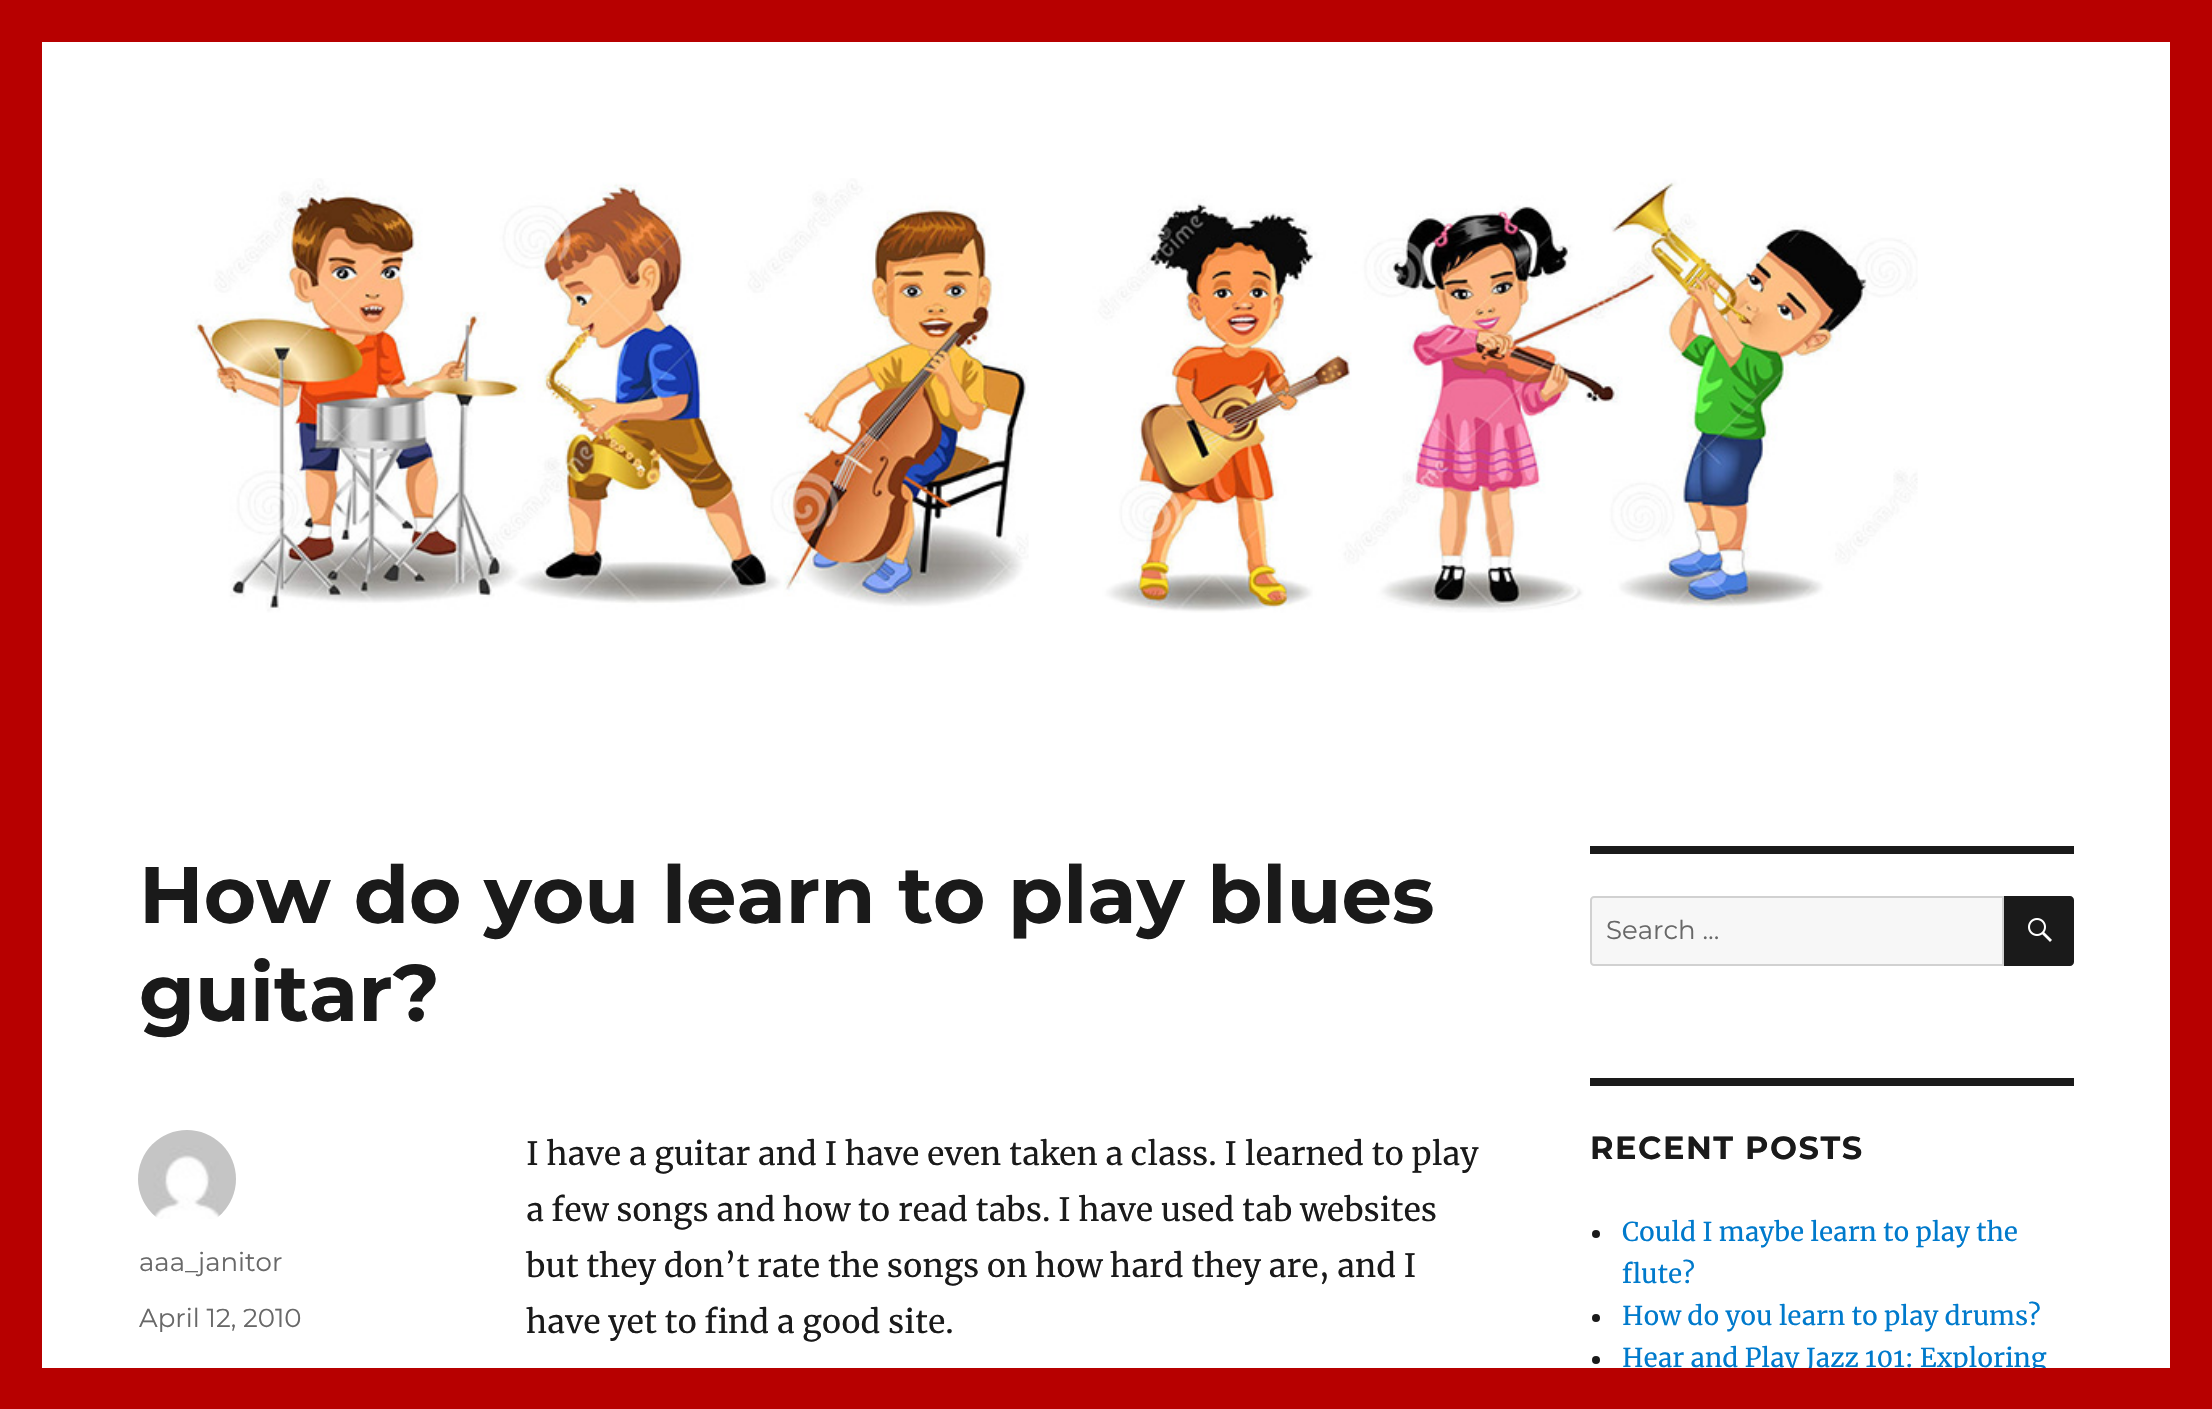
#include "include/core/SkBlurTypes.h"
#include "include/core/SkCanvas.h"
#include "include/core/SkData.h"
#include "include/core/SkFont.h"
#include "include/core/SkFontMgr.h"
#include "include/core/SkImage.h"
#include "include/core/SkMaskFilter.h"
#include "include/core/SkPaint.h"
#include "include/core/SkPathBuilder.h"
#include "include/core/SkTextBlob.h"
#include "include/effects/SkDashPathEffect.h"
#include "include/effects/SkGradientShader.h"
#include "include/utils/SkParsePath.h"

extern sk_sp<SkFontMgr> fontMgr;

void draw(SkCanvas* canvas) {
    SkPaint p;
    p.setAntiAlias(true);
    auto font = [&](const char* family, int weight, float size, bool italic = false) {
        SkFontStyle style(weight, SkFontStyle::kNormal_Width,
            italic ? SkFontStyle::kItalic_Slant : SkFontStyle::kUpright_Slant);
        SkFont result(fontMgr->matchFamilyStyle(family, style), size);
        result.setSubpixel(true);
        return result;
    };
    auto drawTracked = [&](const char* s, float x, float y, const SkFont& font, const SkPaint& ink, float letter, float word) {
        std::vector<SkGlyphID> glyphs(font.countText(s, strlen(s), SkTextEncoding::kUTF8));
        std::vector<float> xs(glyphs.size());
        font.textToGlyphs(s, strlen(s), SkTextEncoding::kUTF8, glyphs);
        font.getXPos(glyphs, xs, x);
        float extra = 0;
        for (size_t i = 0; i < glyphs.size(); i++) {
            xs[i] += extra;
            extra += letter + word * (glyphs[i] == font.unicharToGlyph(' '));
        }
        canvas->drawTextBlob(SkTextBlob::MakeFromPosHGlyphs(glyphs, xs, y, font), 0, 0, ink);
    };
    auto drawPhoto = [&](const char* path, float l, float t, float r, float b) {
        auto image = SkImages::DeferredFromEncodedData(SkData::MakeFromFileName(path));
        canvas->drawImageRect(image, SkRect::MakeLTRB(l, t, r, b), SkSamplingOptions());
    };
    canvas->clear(0xFFB70000);
    p.setColor(0xFFFFFFFF);
    canvas->drawRect(SkRect::MakeLTRB(42, 42, 2170, 1368), p);
    drawPhoto("media/1.png", 190, 178, 1918, 613);
    auto font1 = font("Montserrat", 100, 80);
    p.setColor(0xFF1A1A1A);
    canvas->drawString("How do you learn to play blues", 139, 923, font1, p);
    canvas->drawString("guitar?", 139, 1021, font1, p);
    drawPhoto("media/2.png", 138, 1130, 236, 1219);
    auto font2 = font("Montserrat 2", 100, 26);
    p.setColor(0xFF686868);
    canvas->drawString("aaa_janitor", 139, 1271, font2, p);
    canvas->drawString("April 12, 2010", 139, 1327, font2, p);
    auto font3 = font("Merriweather", 400, 32);
    p.setColor(0xFF1A1A1A);
    {
        const struct { const char* s; float x, y; } items[] = {
            {"I have a guitar and I have even taken a class. I learned to play", 526, 1165},
            {"a few songs and how to read tabs. I have used tab websites", 526, 1221},
            {"but they don’t rate the songs on how hard they are, and I", 526, 1277},
            {"have yet to find a good site.", 526, 1333},
        };
        for (auto [s, x, y] : items) {
            canvas->drawString(s, x, y, font3, p);
        }
    }
    canvas->drawRect(SkRect::MakeLTRB(1590, 846, 2074, 854), p);
    p.setColor(0xFFF7F7F7);
    canvas->drawPath(SkPathBuilder().moveTo(1594, 897).lineTo(2003, 897).lineTo(2003, 965).lineTo(1594, 965).cubicTo(1592.5f, 965, 1591, 963.5f, 1591, 962).lineTo(1591, 900).cubicTo(1591, 898.5f, 1592.5f, 897, 1594, 897).close().detach(), p);
    p.setStyle(SkPaint::kStroke_Style);
    p.setStrokeWidth(2);
    p.setColor(0xFFD1D1D1);
    canvas->drawPath(SkPathBuilder().moveTo(1594, 897).lineTo(2003, 897).lineTo(2003, 965).lineTo(1594, 965).cubicTo(1592.5f, 965, 1591, 963.5f, 1591, 962).lineTo(1591, 900).cubicTo(1591, 898.5f, 1592.5f, 897, 1594, 897).close().detach(), p);
    p.setStyle(SkPaint::kFill_Style);
    p.setColor(0xFF686868);
    canvas->drawString("Search …", 1606, 939, font2, p);
    p.setColor(0xFF1A1A1A);
    canvas->drawPath(SkPathBuilder().moveTo(2004, 896).lineTo(2070, 896).cubicTo(2072, 896, 2074, 898, 2074, 900).lineTo(2074, 962).cubicTo(2074, 964, 2072, 966, 2070, 966).lineTo(2004, 966).close().detach(), p);
    drawPhoto("media/3.png", 2028, 918, 2052, 942);
    canvas->drawRect(SkRect::MakeLTRB(1590, 1078, 2074, 1086), p);
    auto font4 = font("Montserrat", 100, 32);
    drawTracked("RECENT POSTS", 1590, 1159, font4, p, 1.5f, 0);
    canvas->drawCircle(1596, 1234, 4, p);
    auto font5 = font("Merriweather", 400, 26);
    p.setColor(0xFF007ACC);
    canvas->drawString("Could I maybe learn to play the", 1622, 1241, font5, p);
    canvas->drawString("flute?", 1622, 1283, font5, p);
    p.setColor(0xFF1A1A1A);
    canvas->drawCircle(1596, 1318, 4, p);
    p.setColor(0xFF007ACC);
    canvas->drawString("How do you learn to play drums?", 1622, 1325, font5, p);
    p.setColor(0xFF1A1A1A);
    canvas->drawCircle(1596, 1360, 4, p);
    p.setColor(0xFF007ACC);
    canvas->drawString("Hear and Play Jazz 101: Exploring", 1622, 1367, font5, p);
    p.setColor(0xFFB70000);
    canvas->drawRect(SkRect::MakeLTRB(1786, 1368, 2047, 1374), p);
}
